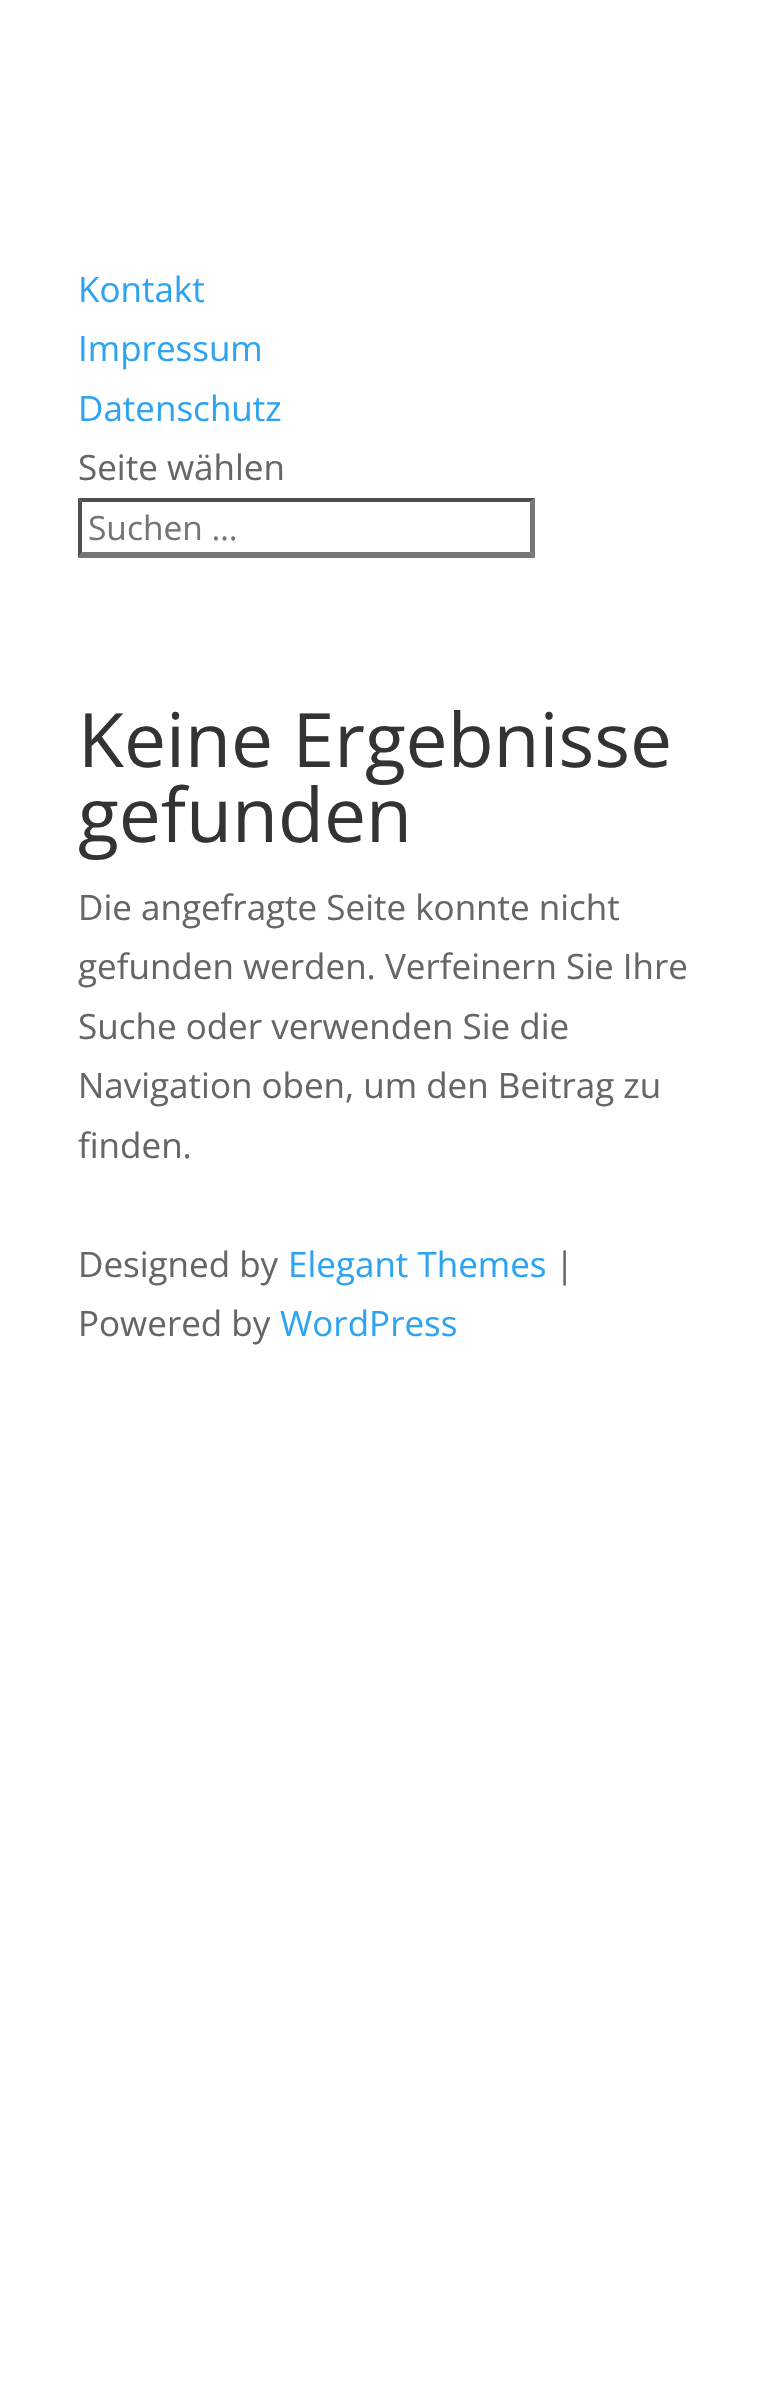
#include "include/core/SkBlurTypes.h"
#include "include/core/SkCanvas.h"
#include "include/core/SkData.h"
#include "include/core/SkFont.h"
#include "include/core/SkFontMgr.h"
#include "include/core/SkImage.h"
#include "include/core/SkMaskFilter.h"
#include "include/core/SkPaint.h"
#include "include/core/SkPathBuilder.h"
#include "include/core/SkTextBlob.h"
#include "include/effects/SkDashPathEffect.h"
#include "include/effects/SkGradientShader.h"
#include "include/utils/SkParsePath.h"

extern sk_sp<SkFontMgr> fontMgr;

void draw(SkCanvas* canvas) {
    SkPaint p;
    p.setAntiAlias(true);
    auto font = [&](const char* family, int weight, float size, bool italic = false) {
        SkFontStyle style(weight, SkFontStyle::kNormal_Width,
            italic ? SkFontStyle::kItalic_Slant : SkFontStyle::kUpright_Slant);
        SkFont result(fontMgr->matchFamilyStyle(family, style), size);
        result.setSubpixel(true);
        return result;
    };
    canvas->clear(0xFFFFFFFF);
    auto font1 = font("Open Sans", 400, 35);
    p.setColor(0xFF2EA3F2);
    {
        const struct { const char* s; float x, y; } items[] = {
            {"Kontakt", 78, 302},
            {"Impressum", 78, 361},
            {"Datenschutz", 78, 421},
        };
        for (auto [s, x, y] : items) {
            canvas->drawString(s, x, y, font1, p);
        }
    }
    p.setColor(0xFF666666);
    canvas->drawString("Seite wählen", 78, 480, font1, p);
    p.setColor(0xFF4F4F4F);
    canvas->drawPath(SkPathBuilder().moveTo(78, 498).lineTo(535, 498).lineTo(530, 502).lineTo(82, 502).close().detach(), p);
    p.setColor(0xFF767676);
    canvas->drawPath(SkPathBuilder().moveTo(535, 498).lineTo(535, 558).lineTo(530, 552).lineTo(530, 502).close().detach(), p);
    canvas->drawPath(SkPathBuilder().moveTo(535, 558).lineTo(78, 558).lineTo(82, 552).lineTo(530, 552).close().detach(), p);
    p.setColor(0xFF4F4F4F);
    canvas->drawPath(SkPathBuilder().moveTo(78, 558).lineTo(78, 498).lineTo(82, 502).lineTo(82, 552).close().detach(), p);
    auto font2 = font("Open Sans", 400, 33.5f);
    p.setColor(0xFF757575);
    canvas->drawString("Suchen …", 88, 540, font2, p);
    auto font3 = font("Open Sans", 400, 75);
    p.setColor(0xFF333333);
    canvas->drawString("Keine Ergebnisse", 78, 767, font3, p);
    canvas->drawString("gefunden", 78, 842, font3, p);
    p.setColor(0xFF666666);
    {
        const struct { const char* s; float x, y; } items[] = {
            {"Die angefragte Seite konnte nicht", 78, 920},
            {"gefunden werden. Verfeinern Sie Ihre", 78, 979},
            {"Suche oder verwenden Sie die", 78, 1039},
            {"Navigation oben, um den Beitrag zu", 78, 1098},
            {"finden.", 78, 1158},
            {"Designed by", 78, 1277},
        };
        for (auto [s, x, y] : items) {
            canvas->drawString(s, x, y, font1, p);
        }
    }
    p.setColor(0xFF2EA3F2);
    canvas->drawString("Elegant Themes", 288, 1277, font1, p);
    p.setColor(0xFF666666);
    canvas->drawString("|", 555, 1277, font1, p);
    canvas->drawString("Powered by", 78, 1336, font1, p);
    p.setColor(0xFF2EA3F2);
    canvas->drawString("WordPress", 280, 1336, font1, p);
}
